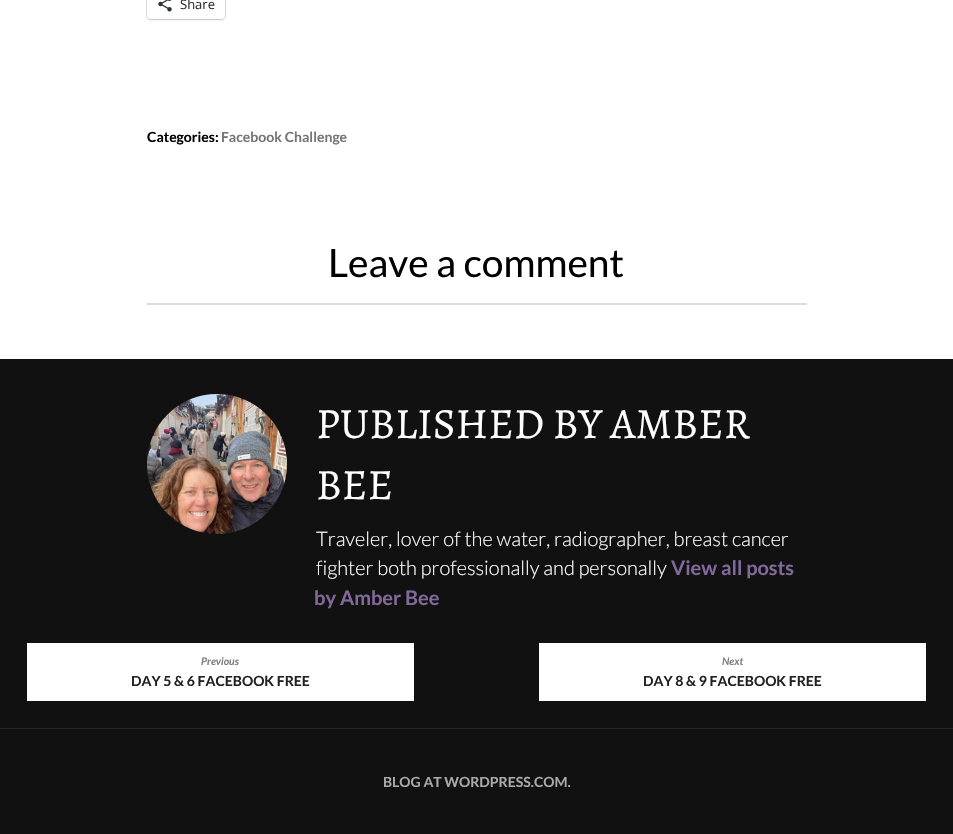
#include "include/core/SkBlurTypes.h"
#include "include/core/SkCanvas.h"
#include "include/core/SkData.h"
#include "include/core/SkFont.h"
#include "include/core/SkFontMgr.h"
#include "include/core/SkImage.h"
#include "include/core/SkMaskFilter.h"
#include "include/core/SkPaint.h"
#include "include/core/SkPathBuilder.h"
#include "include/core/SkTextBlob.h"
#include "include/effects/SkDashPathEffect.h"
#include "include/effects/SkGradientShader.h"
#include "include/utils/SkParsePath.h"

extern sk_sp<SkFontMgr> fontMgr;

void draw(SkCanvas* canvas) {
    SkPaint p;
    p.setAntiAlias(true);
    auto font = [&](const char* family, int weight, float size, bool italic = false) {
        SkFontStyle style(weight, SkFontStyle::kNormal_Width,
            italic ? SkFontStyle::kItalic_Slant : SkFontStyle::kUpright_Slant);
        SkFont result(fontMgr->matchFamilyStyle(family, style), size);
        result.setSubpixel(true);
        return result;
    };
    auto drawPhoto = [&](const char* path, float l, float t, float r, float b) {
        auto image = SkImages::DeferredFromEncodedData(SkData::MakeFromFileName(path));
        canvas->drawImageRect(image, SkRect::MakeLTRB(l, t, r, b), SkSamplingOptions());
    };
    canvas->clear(0xFFFFFFFF);
    p.setStyle(SkPaint::kStroke_Style);
    p.setStrokeWidth(1);
    p.setColor(0xFFE0E0E0);
    canvas->drawRoundRect(SkRect::MakeLTRB(146.5f, -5.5f, 225.5f, 19.5f), 4.5f, 4.5f, p);
    p.setStyle(SkPaint::kFill_Style);
    p.setColor(0x1F000000);
    p.setMaskFilter(SkMaskFilter::MakeBlur(kNormal_SkBlurStyle, 1));
    canvas->drawRoundRect(SkRect::MakeLTRB(147, -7, 225, 20), 4, 4, p);
    p.setMaskFilter(nullptr);
    p.setColor(0xFFFFFFFF);
    canvas->drawRoundRect(SkRect::MakeLTRB(147, -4, 225, 19), 4, 4, p);
    drawPhoto("media/1.png", 158, 0, 172, 12);
    auto font1 = font("Open Sans", 400, 13);
    p.setColor(0xFF2C3338);
    canvas->drawString("Share", 180, 9, font1, p);
    auto font2 = font("Lato", 700, 14);
    p.setColor(0xFF000000);
    canvas->drawString("Categories:", 147, 142, font2, p);
    p.setColor(0xFF767676);
    canvas->drawString("Facebook Challenge", 221, 142, font2, p);
    auto font3 = font("Lato", 400, 39);
    p.setColor(0xFF000000);
    canvas->drawString("Leave a comment", 328, 277, font3, p);
    {
        const struct { float l, t, r, b; SkColor color; } items[] = {
            {147, 303, 807, 305, 0xFFDCDCDE},
            {0, 359, 953, 728, 0xFF111111},
            {0, 728, 953, 729, 0xFF252525},
        };
        for (auto [l, t, r, b, color] : items) {
            p.setColor(color);
            canvas->drawRect(SkRect::MakeLTRB(l, t, r, b), p);
        }
    }
    drawPhoto("media/2.png", 147, 394, 287, 534);
    auto font4 = font("Alegreya", 400, 43.25f);
    p.setColor(0xFFFFFFFF);
    canvas->drawString("PUBLISHED BY AMBER", 316, 438, font4, p);
    canvas->drawString("BEE", 316, 499, font4, p);
    auto font5 = font("Lato", 300, 20);
    canvas->drawString("Traveler, lover of the water, radiographer, breast cancer", 316, 546, font5, p);
    canvas->drawString("fighter both professionally and personally", 316, 575, font5, p);
    auto font6 = font("Lato", 700, 20);
    p.setColor(0xFF81699B);
    canvas->drawString("View all posts", 671, 575, font6, p);
    canvas->drawString("by Amber Bee", 314, 605, font6, p);
    p.setColor(0xFFFFFFFF);
    canvas->drawRect(SkRect::MakeLTRB(27, 643, 414, 701), p);
    auto font7 = font("Lato", 700, 10.5f, true);
    p.setColor(0xFF808080);
    canvas->drawString("Previous", 201, 665, font7, p);
    p.setColor(0xFF222222);
    canvas->drawString("DAY 5 & 6 FACEBOOK FREE", 131, 686, font2, p);
    p.setColor(0xFFFFFFFF);
    canvas->drawRect(SkRect::MakeLTRB(539, 643, 926, 701), p);
    p.setColor(0xFF808080);
    canvas->drawString("Next", 722, 665, font7, p);
    p.setColor(0xFF222222);
    canvas->drawString("DAY 8 & 9 FACEBOOK FREE", 643, 686, font2, p);
    p.setColor(0xFF111111);
    canvas->drawRect(SkRect::MakeLTRB(0, 729, 953, 834), p);
    p.setColor(0xFFAAAAAA);
    canvas->drawString("BLOG AT WORDPRESS.COM.", 383, 787, font2, p);
}
